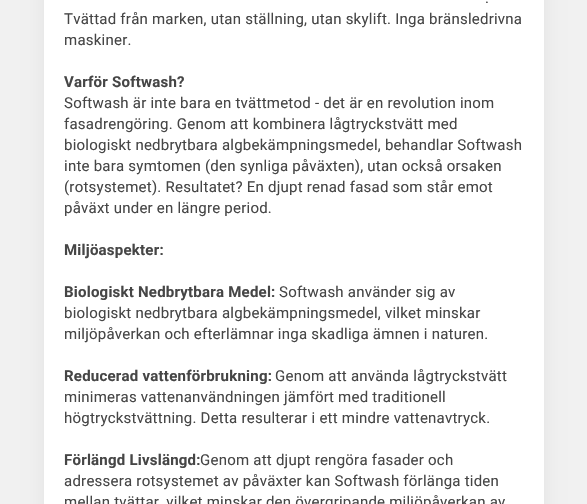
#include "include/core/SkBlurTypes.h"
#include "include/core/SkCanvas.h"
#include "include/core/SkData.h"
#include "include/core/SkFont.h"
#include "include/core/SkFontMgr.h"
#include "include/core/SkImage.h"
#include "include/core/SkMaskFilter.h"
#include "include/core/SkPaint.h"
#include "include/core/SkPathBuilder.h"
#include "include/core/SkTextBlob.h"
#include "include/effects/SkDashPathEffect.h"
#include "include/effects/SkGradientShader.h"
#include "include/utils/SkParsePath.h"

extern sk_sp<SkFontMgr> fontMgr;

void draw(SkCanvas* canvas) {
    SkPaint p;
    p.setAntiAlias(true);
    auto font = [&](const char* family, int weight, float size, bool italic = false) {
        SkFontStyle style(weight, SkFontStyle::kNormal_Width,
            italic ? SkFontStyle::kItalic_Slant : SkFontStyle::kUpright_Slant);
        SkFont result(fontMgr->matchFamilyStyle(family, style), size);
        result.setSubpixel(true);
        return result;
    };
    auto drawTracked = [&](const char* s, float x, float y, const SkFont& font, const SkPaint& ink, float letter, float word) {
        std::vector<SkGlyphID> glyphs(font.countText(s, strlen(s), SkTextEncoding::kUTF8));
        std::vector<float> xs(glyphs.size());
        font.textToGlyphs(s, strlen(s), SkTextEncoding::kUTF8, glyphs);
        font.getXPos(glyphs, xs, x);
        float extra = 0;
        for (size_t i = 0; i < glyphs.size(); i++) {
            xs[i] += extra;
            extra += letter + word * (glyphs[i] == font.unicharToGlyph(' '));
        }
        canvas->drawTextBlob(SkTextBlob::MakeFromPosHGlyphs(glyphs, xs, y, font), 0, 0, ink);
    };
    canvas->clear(0xFFF1F1F1);
    p.setColor(0x0F000000);
    p.setMaskFilter(SkMaskFilter::MakeBlur(kNormal_SkBlurStyle, 10));
    canvas->drawRoundRect(SkRect::MakeLTRB(44, -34, 544, 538), 4, 4, p);
    p.setMaskFilter(nullptr);
    p.setColor(0xFFFFFFFF);
    canvas->drawRect(SkRect::MakeLTRB(44, 0, 544, 504), p);
    auto font1 = font("Roboto", 400, 15);
    p.setColor(0xFF464646);
    {
        const struct { const char* s; float x, y; } items[] = {
            {".", 485, 3},
            {"Tvättad från marken, utan ställning, utan skylift. Inga bränsledrivna", 64, 24},
            {"maskiner.", 64, 45},
        };
        for (auto [s, x, y] : items) {
            drawTracked(s, x, y, font1, p, 0.23f, 0);
        }
    }
    auto font2 = font("Roboto", 700, 15);
    drawTracked("Varför Softwash?", 64, 87, font2, p, 0.23f, 0);
    {
        const struct { const char* s; float x, y; } items[] = {
            {"Softwash är inte bara en tvättmetod - det är en revolution inom", 64, 108},
            {"fasadrengöring. Genom att kombinera lågtryckstvätt med", 64, 129},
            {"biologiskt nedbrytbara algbekämpningsmedel, behandlar Softwash", 64, 150},
            {"inte bara symtomen (den synliga påväxten), utan också orsaken", 64, 171},
            {"(rotsystemet). Resultatet? En djupt renad fasad som står emot", 64, 192},
            {"påväxt under en längre period.", 64, 213},
        };
        for (auto [s, x, y] : items) {
            drawTracked(s, x, y, font1, p, 0.23f, 0);
        }
    }
    drawTracked("Miljöaspekter:", 64, 255, font2, p, 0.23f, 0);
    drawTracked("Biologiskt Nedbrytbara Medel:", 64, 297, font2, p, 0.23f, 0);
    {
        const struct { const char* s; float x, y; } items[] = {
            {"Softwash använder sig av", 279, 297},
            {"biologiskt nedbrytbara algbekämpningsmedel, vilket minskar", 64, 318},
            {"miljöpåverkan och efterlämnar inga skadliga ämnen i naturen.", 64, 339},
        };
        for (auto [s, x, y] : items) {
            drawTracked(s, x, y, font1, p, 0.23f, 0);
        }
    }
    drawTracked("Reducerad vattenförbrukning:", 64, 381, font2, p, 0.23f, 0);
    {
        const struct { const char* s; float x, y; } items[] = {
            {"Genom att använda lågtryckstvätt", 275, 381},
            {"minimeras vattenanvändningen jämfört med traditionell", 64, 402},
            {"högtryckstvättning. Detta resulterar i ett mindre vattenavtryck.", 64, 423},
        };
        for (auto [s, x, y] : items) {
            drawTracked(s, x, y, font1, p, 0.23f, 0);
        }
    }
    drawTracked("Förlängd Livslängd:", 64, 465, font2, p, 0.23f, 0);
    {
        const struct { const char* s; float x, y; } items[] = {
            {"Genom att djupt rengöra fasader och", 200, 465},
            {"adressera rotsystemet av påväxter kan Softwash förlänga tiden", 64, 486},
            {"mellan tvättar, vilket minskar den övergripande miljöpåverkan av", 64, 507},
        };
        for (auto [s, x, y] : items) {
            drawTracked(s, x, y, font1, p, 0.23f, 0);
        }
    }
}
